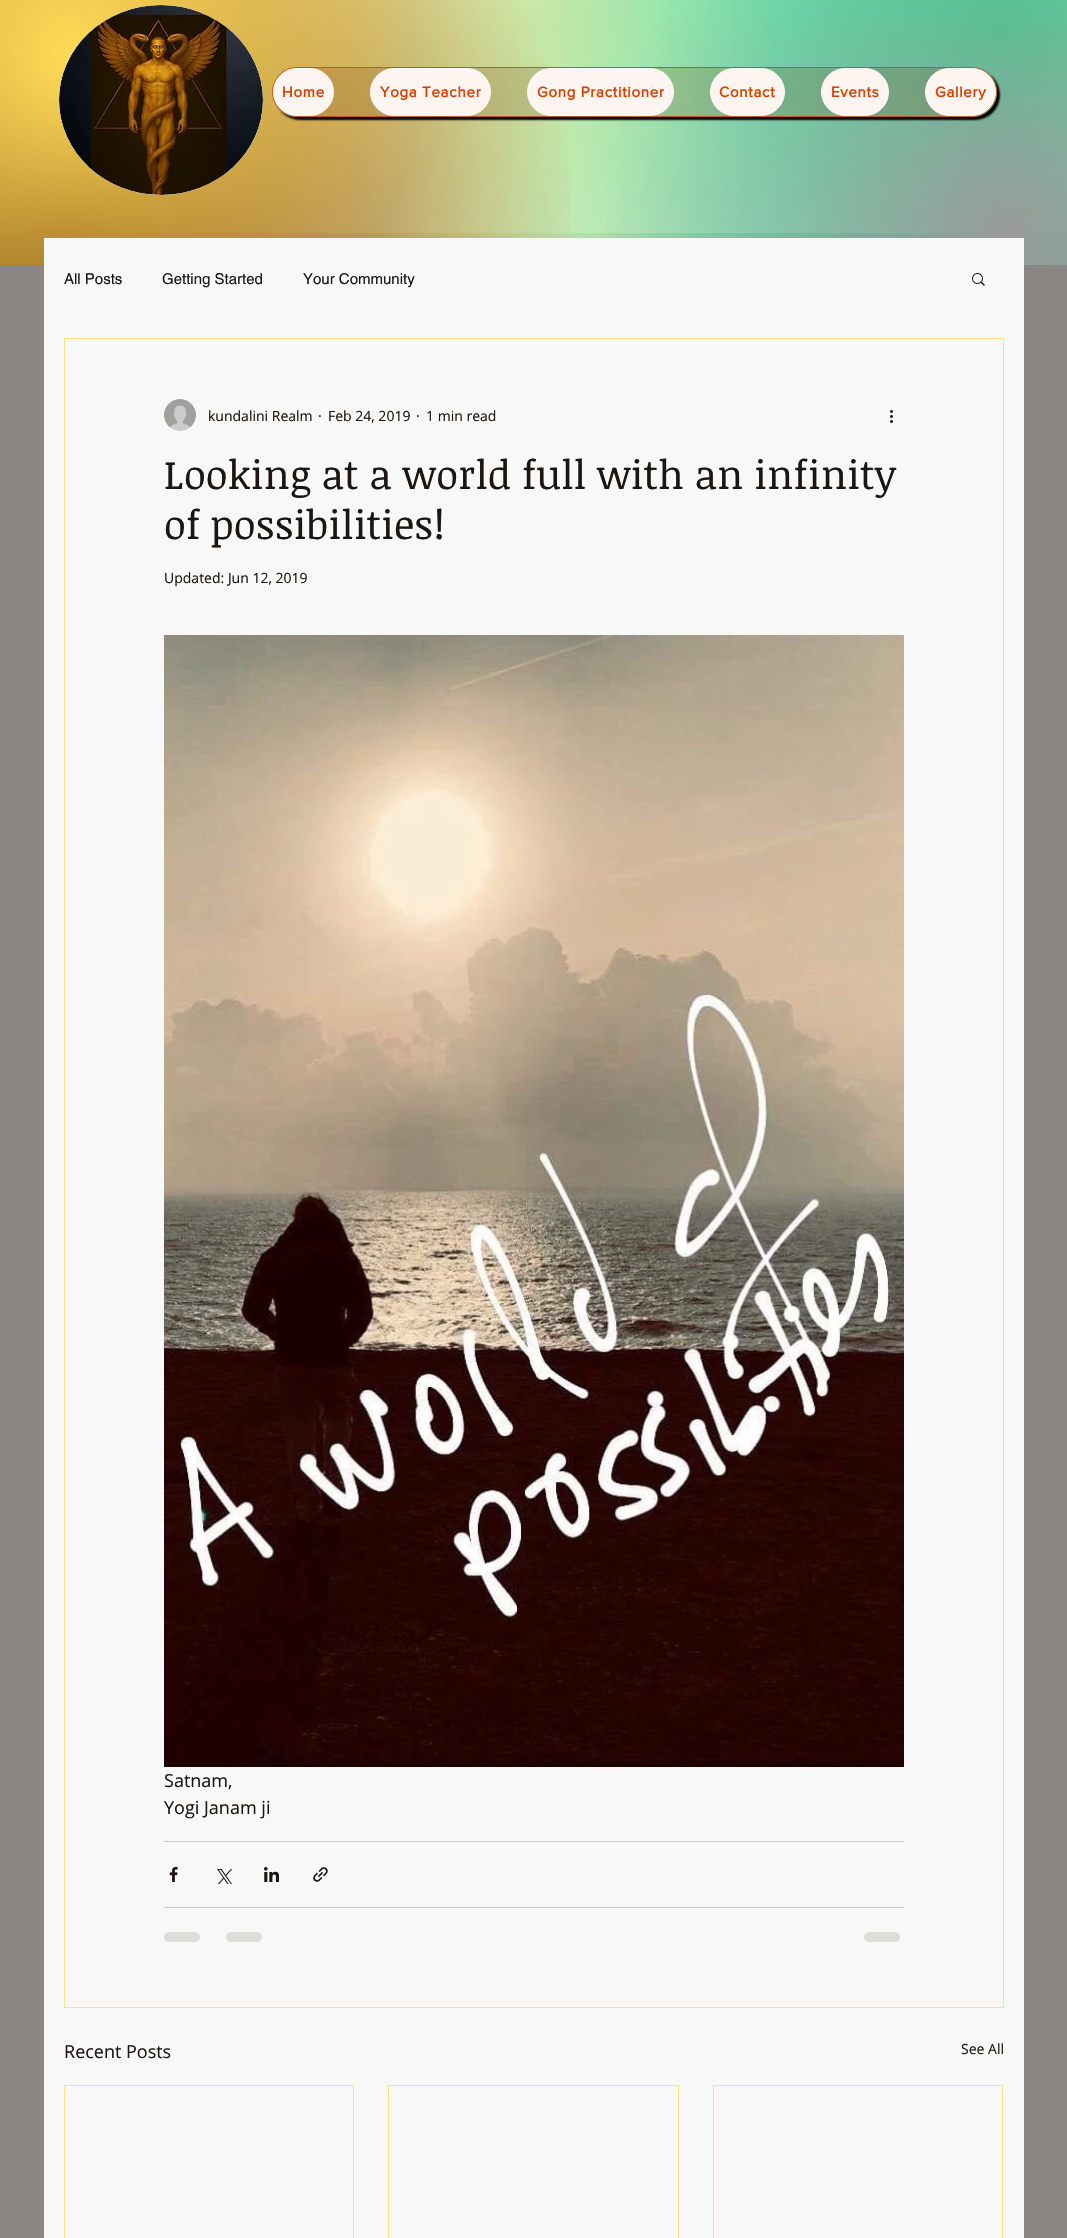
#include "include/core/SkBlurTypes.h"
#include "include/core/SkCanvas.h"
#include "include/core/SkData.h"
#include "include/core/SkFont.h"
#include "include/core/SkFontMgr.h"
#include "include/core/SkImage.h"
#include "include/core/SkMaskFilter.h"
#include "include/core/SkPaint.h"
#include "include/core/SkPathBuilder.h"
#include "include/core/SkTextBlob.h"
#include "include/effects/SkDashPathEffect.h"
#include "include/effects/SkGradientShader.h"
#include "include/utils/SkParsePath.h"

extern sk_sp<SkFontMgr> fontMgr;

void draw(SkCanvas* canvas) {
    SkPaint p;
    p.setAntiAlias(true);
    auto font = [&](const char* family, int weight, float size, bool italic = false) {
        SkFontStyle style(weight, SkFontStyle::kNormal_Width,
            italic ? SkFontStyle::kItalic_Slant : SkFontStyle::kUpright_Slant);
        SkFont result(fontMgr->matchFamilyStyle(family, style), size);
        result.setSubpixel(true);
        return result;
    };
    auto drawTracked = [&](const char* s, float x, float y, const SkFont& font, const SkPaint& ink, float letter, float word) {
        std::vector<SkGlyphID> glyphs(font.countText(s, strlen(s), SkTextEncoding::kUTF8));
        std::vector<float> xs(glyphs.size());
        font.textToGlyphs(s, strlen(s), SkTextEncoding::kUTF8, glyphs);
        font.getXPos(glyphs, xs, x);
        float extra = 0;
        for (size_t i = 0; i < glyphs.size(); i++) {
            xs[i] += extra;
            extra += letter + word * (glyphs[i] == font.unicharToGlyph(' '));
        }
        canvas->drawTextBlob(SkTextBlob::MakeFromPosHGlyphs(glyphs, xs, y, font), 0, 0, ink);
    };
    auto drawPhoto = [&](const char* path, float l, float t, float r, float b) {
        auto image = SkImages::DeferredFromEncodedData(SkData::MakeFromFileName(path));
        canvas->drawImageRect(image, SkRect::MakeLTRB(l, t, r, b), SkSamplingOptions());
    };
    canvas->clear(0xFF8A8785);
    p.setColor(0xFFEFEFEF);
    canvas->drawRect(SkRect::MakeLTRB(0, 0, 1067, 233), p);
    {
        const SkColor colors[] = {0xFFF8F8F8, 0x00F8F8F8};
        const float stops[] = {0, 1};
        p.setShader(SkGradientShader::MakeRadial({522, 131}, 561, colors, stops, 2, SkTileMode::kClamp));
        p.setAlpha(255);
    }
    canvas->drawRect(SkRect::MakeLTRB(0, 0, 1060, 265), p);
    {
        const SkColor colors[] = {0xFF21DE8C, 0x0021DE8C};
        const float stops[] = {0, 0.7f};
        p.setShader(SkGradientShader::MakeRadial({1000, 30}, 1027, colors, stops, 2, SkTileMode::kClamp));
        p.setAlpha(255);
    }
    canvas->drawRect(SkRect::MakeLTRB(297, 0, 1067, 265), p);
    {
        const SkColor colors[] = {0xFFFFDB58, 0x00FFDB58};
        const float stops[] = {0, 0.7f};
        p.setShader(SkGradientShader::MakeRadial({66, 33}, 1028, colors, stops, 2, SkTileMode::kClamp));
        p.setAlpha(255);
    }
    canvas->drawRect(SkRect::MakeLTRB(0, 0, 769, 265), p);
    {
        const SkColor colors[] = {0xFC753F07, 0x00753F07};
        const float stops[] = {0, 0.5f};
        p.setShader(SkGradientShader::MakeRadial({69, 233}, 1025, colors, stops, 2, SkTileMode::kClamp));
        p.setAlpha(255);
    }
    canvas->drawRect(SkRect::MakeLTRB(0, 0, 570, 265), p);
    {
        const SkColor colors[] = {0xFF999999, 0x00999999};
        const float stops[] = {0, 0.4f};
        p.setShader(SkGradientShader::MakeRadial({1007, 237}, 1034, colors, stops, 2, SkTileMode::kClamp));
        p.setAlpha(255);
    }
    canvas->drawRect(SkRect::MakeLTRB(606, 0, 1067, 265), p);
    {
        const SkColor colors[] = {0xFFFFDB58, 0x00FFDB58};
        const float stops[] = {0, 0.35f};
        p.setShader(SkGradientShader::MakeRadial({71, 55}, 1018, colors, stops, 2, SkTileMode::kClamp));
        p.setAlpha(255);
    }
    canvas->drawRect(SkRect::MakeLTRB(0, 0, 411, 265), p);
    p.setShader(nullptr);
    p.setColor(0xFFFFFFFF);
    canvas->drawOval(SkRect::MakeLTRB(59, 5, 263, 195), p);
    drawPhoto("media/1.png", 59, 5, 263, 195);
    canvas->save();
    canvas->clipPath(SkPathBuilder(SkPathFillType::kEvenOdd).moveTo(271, 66).lineTo(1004, 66).lineTo(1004, 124).lineTo(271, 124).close().moveTo(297, 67).lineTo(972, 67).cubicTo(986, 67, 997, 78, 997, 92).cubicTo(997, 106, 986, 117, 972, 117).lineTo(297, 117).cubicTo(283, 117, 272, 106, 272, 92).cubicTo(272, 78, 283, 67, 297, 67).close().detach(), true);
    p.setColor(0xFF000000);
    p.setMaskFilter(SkMaskFilter::MakeBlur(kNormal_SkBlurStyle, 1));
    canvas->drawRoundRect(SkRect::MakeLTRB(275, 70, 1000, 120), 25, 25, p);
    p.setMaskFilter(nullptr);
    canvas->restore();
    p.setColor(0x30753F07);
    canvas->drawRoundRect(SkRect::MakeLTRB(272.5f, 67.5f, 996.5f, 116.5f), 24.5f, 24.5f, p);
    p.setStyle(SkPaint::kStroke_Style);
    p.setStrokeWidth(1);
    p.setColor(0xFFC35817);
    canvas->drawRoundRect(SkRect::MakeLTRB(272.5f, 67.5f, 996.5f, 116.5f), 24.5f, 24.5f, p);
    p.setStyle(SkPaint::kFill_Style);
    p.setColor(0xFFFFF5F0);
    canvas->drawRoundRect(SkRect::MakeLTRB(273.5f, 68.5f, 333.5f, 115.5f), 23.5f, 23.5f, p);
    p.setStyle(SkPaint::kStroke_Style);
    p.setColor(0xFFF8F8F8);
    canvas->drawRoundRect(SkRect::MakeLTRB(273.5f, 68.5f, 333.5f, 115.5f), 23.5f, 23.5f, p);
    auto font1 = font("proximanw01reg", 700, 15);
    p.setStyle(SkPaint::kFill_Style);
    p.setColor(0xFFD74000);
    drawTracked("Home", 282, 97, font1, p, 0.75f, 0);
    p.setColor(0xFFFFF5F0);
    canvas->drawRoundRect(SkRect::MakeLTRB(370.5f, 68.5f, 490.5f, 115.5f), 23.5f, 23.5f, p);
    p.setStyle(SkPaint::kStroke_Style);
    p.setColor(0xFFF8F8F8);
    canvas->drawRoundRect(SkRect::MakeLTRB(370.5f, 68.5f, 490.5f, 115.5f), 23.5f, 23.5f, p);
    p.setStyle(SkPaint::kFill_Style);
    p.setColor(0xFFD74000);
    drawTracked("Yoga Teacher", 380, 97, font1, p, 0.75f, 0);
    p.setColor(0xFFFFF5F0);
    canvas->drawRoundRect(SkRect::MakeLTRB(527.5f, 68.5f, 673.5f, 115.5f), 23.5f, 23.5f, p);
    p.setStyle(SkPaint::kStroke_Style);
    p.setColor(0xFFF8F8F8);
    canvas->drawRoundRect(SkRect::MakeLTRB(527.5f, 68.5f, 673.5f, 115.5f), 23.5f, 23.5f, p);
    p.setStyle(SkPaint::kFill_Style);
    p.setColor(0xFFD74000);
    drawTracked("Gong Practitioner", 537, 97, font1, p, 0.75f, 0);
    p.setColor(0xFFFFF5F0);
    canvas->drawRoundRect(SkRect::MakeLTRB(710.5f, 68.5f, 784.5f, 115.5f), 23.5f, 23.5f, p);
    p.setStyle(SkPaint::kStroke_Style);
    p.setColor(0xFFF8F8F8);
    canvas->drawRoundRect(SkRect::MakeLTRB(710.5f, 68.5f, 784.5f, 115.5f), 23.5f, 23.5f, p);
    p.setStyle(SkPaint::kFill_Style);
    p.setColor(0xFFD74000);
    drawTracked("Contact", 719, 97, font1, p, 0.75f, 0);
    p.setColor(0xFFFFF5F0);
    canvas->drawRoundRect(SkRect::MakeLTRB(821.5f, 68.5f, 888.5f, 115.5f), 23.5f, 23.5f, p);
    p.setStyle(SkPaint::kStroke_Style);
    p.setColor(0xFFF8F8F8);
    canvas->drawRoundRect(SkRect::MakeLTRB(821.5f, 68.5f, 888.5f, 115.5f), 23.5f, 23.5f, p);
    p.setStyle(SkPaint::kFill_Style);
    p.setColor(0xFFD74000);
    drawTracked("Events", 831, 97, font1, p, 0.75f, 0);
    p.setColor(0xFFFFF5F0);
    canvas->drawRoundRect(SkRect::MakeLTRB(925.5f, 68.5f, 995.5f, 115.5f), 23.5f, 23.5f, p);
    p.setStyle(SkPaint::kStroke_Style);
    p.setColor(0xFFF8F8F8);
    canvas->drawRoundRect(SkRect::MakeLTRB(925.5f, 68.5f, 995.5f, 115.5f), 23.5f, 23.5f, p);
    p.setStyle(SkPaint::kFill_Style);
    p.setColor(0xFFD74000);
    drawTracked("Gallery", 935, 97, font1, p, 0.75f, 0);
    p.setColor(0xFFF8F8F8);
    canvas->drawRect(SkRect::MakeLTRB(44, 238, 1024, 2238), p);
    auto font2 = font("helvetica", 400, 15);
    p.setColor(0xFF1B1611);
    {
        const struct { const char* s; float x, y; } items[] = {
            {"All Posts", 64, 284},
            {"Getting Started", 162, 284},
            {"Your Community", 303, 284},
        };
        for (auto [s, x, y] : items) {
            canvas->drawString(s, x, y, font2, p);
        }
    }
    drawPhoto("media/2.png", 972, 273, 985, 286);
    p.setStyle(SkPaint::kStroke_Style);
    p.setColor(0xFFFDE280);
    canvas->drawRect(SkRect::MakeLTRB(64.5f, 338.5f, 1003.5f, 2007.5f), p);
    drawPhoto("media/3.png", 164, 399, 196, 431);
    auto font3 = font("Open Sans", 400, 14);
    p.setStyle(SkPaint::kFill_Style);
    p.setColor(0xFF1B1611);
    {
        const struct { const char* s; float x, y; } items[] = {
            {"kundalini Realm", 208, 421},
            {"·", 318, 421},
            {"Feb 24, 2019", 328, 421},
            {"·", 416, 421},
            {"1 min read", 426, 421},
        };
        for (auto [s, x, y] : items) {
            canvas->drawString(s, x, y, font3, p);
        }
    }
    drawPhoto("media/4.png", 890, 410, 893, 423);
    auto font4 = font("Noticia Text", 400, 40);
    canvas->drawString("Looking at a world full with an infinity", 164, 489, font4, p);
    canvas->drawString("of possibilities!", 164, 539, font4, p);
    canvas->drawString("Updated: Jun 12, 2019", 164, 583, font3, p);
    drawPhoto("media/5.png", 164, 635, 904, 1767);
    auto font5 = font("Open Sans", 400, 18);
    canvas->drawString("Satnam,", 164, 1787, font5, p);
    canvas->drawString("Yogi Janam ji", 164, 1814, font5, p);
    p.setColor(0xFFCCCBCA);
    canvas->drawRect(SkRect::MakeLTRB(164, 1841, 904, 1842), p);
    drawPhoto("media/6.png", 169, 1867, 178, 1882);
    drawPhoto("media/7.png", 217, 1869, 232, 1884);
    drawPhoto("media/8.png", 264, 1867, 279, 1882);
    drawPhoto("media/9.png", 313, 1867, 328, 1882);
    canvas->drawRect(SkRect::MakeLTRB(164, 1907, 904, 1908), p);
    p.setColor(0xFFDDDDDC);
    canvas->drawRoundRect(SkRect::MakeLTRB(164, 1932, 200, 1942), 5, 5, p);
    canvas->drawRoundRect(SkRect::MakeLTRB(226, 1932, 262, 1942), 5, 5, p);
    canvas->drawRoundRect(SkRect::MakeLTRB(864, 1932, 900, 1942), 5, 5, p);
    p.setColor(0xFF1B1611);
    canvas->drawString("Recent Posts", 64, 2058, font5, p);
    canvas->drawString("See All", 961, 2054, font3, p);
    p.setStyle(SkPaint::kStroke_Style);
    p.setColor(0xFFFDE280);
    canvas->drawRect(SkRect::MakeLTRB(64.5f, 2085.5f, 353.5f, 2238.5f), p);
    canvas->drawRect(SkRect::MakeLTRB(388.5f, 2085.5f, 678.5f, 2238.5f), p);
    canvas->drawRect(SkRect::MakeLTRB(713.5f, 2085.5f, 1002.5f, 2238.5f), p);
}
